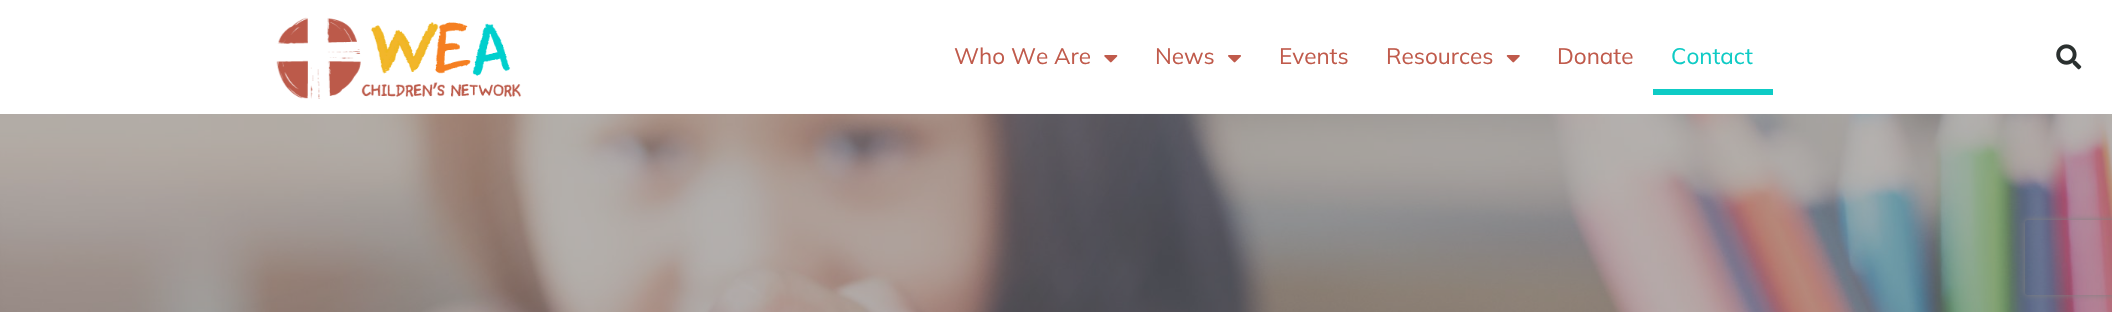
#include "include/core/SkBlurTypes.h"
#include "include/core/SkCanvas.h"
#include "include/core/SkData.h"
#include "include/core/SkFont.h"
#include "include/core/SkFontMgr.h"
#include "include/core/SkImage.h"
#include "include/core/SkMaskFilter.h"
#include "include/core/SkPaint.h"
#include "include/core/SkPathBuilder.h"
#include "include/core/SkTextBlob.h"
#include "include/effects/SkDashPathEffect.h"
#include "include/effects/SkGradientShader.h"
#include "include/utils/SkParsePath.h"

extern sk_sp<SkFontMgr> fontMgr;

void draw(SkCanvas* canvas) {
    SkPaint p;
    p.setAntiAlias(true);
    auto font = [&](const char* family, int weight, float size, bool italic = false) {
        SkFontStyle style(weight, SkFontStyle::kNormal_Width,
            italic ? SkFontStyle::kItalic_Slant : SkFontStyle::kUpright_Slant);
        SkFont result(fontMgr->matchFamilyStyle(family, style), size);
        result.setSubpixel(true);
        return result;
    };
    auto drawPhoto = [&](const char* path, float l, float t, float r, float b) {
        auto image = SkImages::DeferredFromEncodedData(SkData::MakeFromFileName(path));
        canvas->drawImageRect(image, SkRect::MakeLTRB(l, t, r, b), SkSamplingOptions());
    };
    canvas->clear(0xFFFFFFFF);
    drawPhoto("media/6.png", 0, 113, 2112, 312);
    p.setColor(0xE6FFFFFF);
    canvas->drawRect(SkRect::MakeLTRB(0, 113, 2112, 114), p);
    drawPhoto("media/1.png", 276, 17, 522, 99);
    auto font1 = font("Mulish", 400, 22.5f);
    p.setColor(0xFFC05A4B);
    canvas->drawString("Who We Are", 954, 64, font1, p);
    drawPhoto("media/2.png", 1104, 55, 1118, 63);
    canvas->drawString("News", 1155, 64, font1, p);
    drawPhoto("media/3.png", 1228, 55, 1241, 63);
    canvas->drawString("Events", 1279, 64, font1, p);
    canvas->drawString("Resources", 1386, 64, font1, p);
    drawPhoto("media/4.png", 1506, 55, 1520, 63);
    canvas->drawString("Donate", 1557, 64, font1, p);
    p.setColor(0xFF0ECBC5);
    canvas->drawString("Contact", 1671, 64, font1, p);
    canvas->drawRect(SkRect::MakeLTRB(1653, 89, 1773, 95), p);
    drawPhoto("media/5.png", 2056, 44, 2082, 70);
    canvas->save();
    canvas->clipPath(SkPathBuilder(SkPathFillType::kEvenOdd).moveTo(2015, 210).lineTo(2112, 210).lineTo(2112, 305).lineTo(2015, 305).close().moveTo(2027.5f, 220).lineTo(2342.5f, 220).cubicTo(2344, 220, 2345, 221, 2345, 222.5f).lineTo(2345, 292.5f).cubicTo(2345, 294, 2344, 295, 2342.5f, 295).lineTo(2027.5f, 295).cubicTo(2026, 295, 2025, 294, 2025, 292.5f).lineTo(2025, 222.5f).cubicTo(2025, 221, 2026, 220, 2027.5f, 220).close().detach(), true);
    p.setColor(0xFF808080);
    p.setMaskFilter(SkMaskFilter::MakeBlur(kNormal_SkBlurStyle, 3));
    canvas->drawRoundRect(SkRect::MakeLTRB(2025, 220, 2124, 295), 2.5f, 2.5f, p);
    p.setMaskFilter(nullptr);
    canvas->restore();
}
